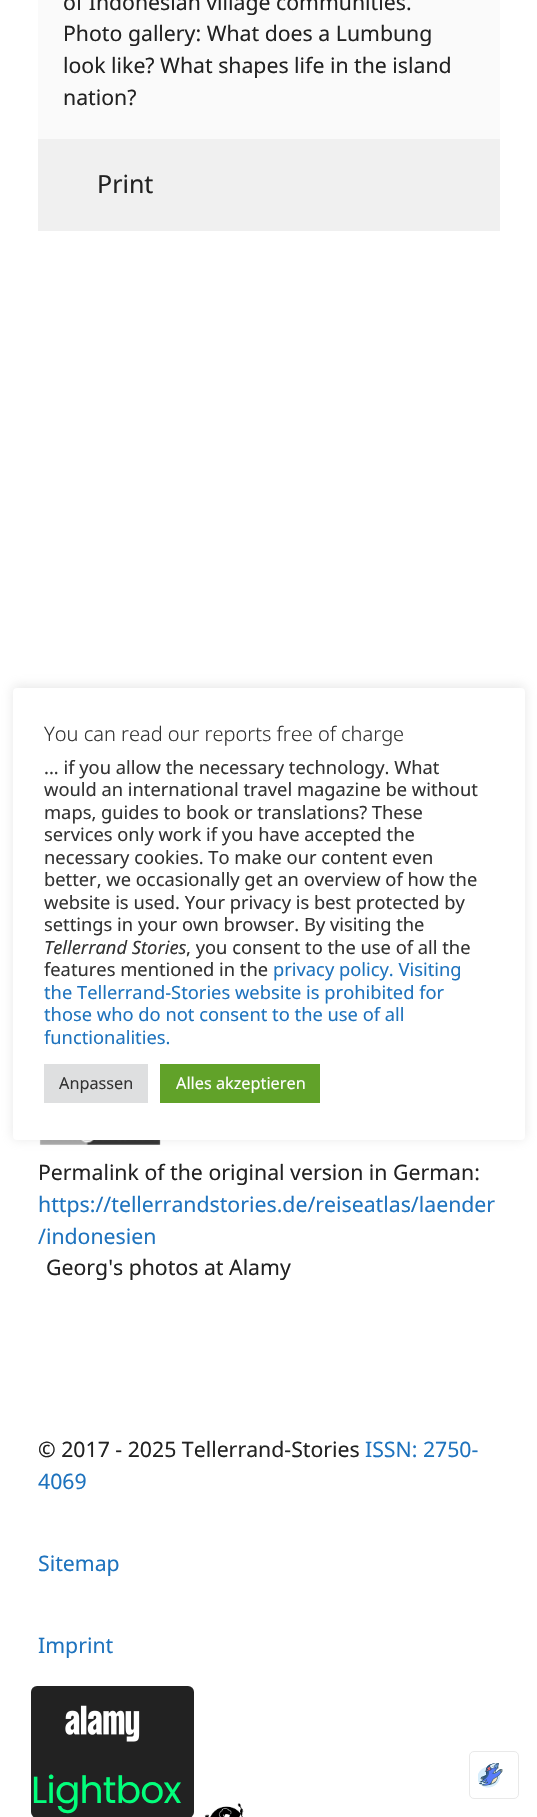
#include "include/core/SkBlurTypes.h"
#include "include/core/SkCanvas.h"
#include "include/core/SkData.h"
#include "include/core/SkFont.h"
#include "include/core/SkFontMgr.h"
#include "include/core/SkImage.h"
#include "include/core/SkMaskFilter.h"
#include "include/core/SkPaint.h"
#include "include/core/SkPathBuilder.h"
#include "include/core/SkTextBlob.h"
#include "include/effects/SkDashPathEffect.h"
#include "include/effects/SkGradientShader.h"
#include "include/utils/SkParsePath.h"

extern sk_sp<SkFontMgr> fontMgr;

void draw(SkCanvas* canvas) {
    SkPaint p;
    p.setAntiAlias(true);
    auto font = [&](const char* family, int weight, float size, bool italic = false) {
        SkFontStyle style(weight, SkFontStyle::kNormal_Width,
            italic ? SkFontStyle::kItalic_Slant : SkFontStyle::kUpright_Slant);
        SkFont result(fontMgr->matchFamilyStyle(family, style), size);
        result.setSubpixel(true);
        return result;
    };
    auto drawTracked = [&](const char* s, float x, float y, const SkFont& font, const SkPaint& ink, float letter, float word) {
        std::vector<SkGlyphID> glyphs(font.countText(s, strlen(s), SkTextEncoding::kUTF8));
        std::vector<float> xs(glyphs.size());
        font.textToGlyphs(s, strlen(s), SkTextEncoding::kUTF8, glyphs);
        font.getXPos(glyphs, xs, x);
        float extra = 0;
        for (size_t i = 0; i < glyphs.size(); i++) {
            xs[i] += extra;
            extra += letter + word * (glyphs[i] == font.unicharToGlyph(' '));
        }
        canvas->drawTextBlob(SkTextBlob::MakeFromPosHGlyphs(glyphs, xs, y, font), 0, 0, ink);
    };
    auto drawPhoto = [&](const char* path, float l, float t, float r, float b) {
        auto image = SkImages::DeferredFromEncodedData(SkData::MakeFromFileName(path));
        canvas->drawImageRect(image, SkRect::MakeLTRB(l, t, r, b), SkSamplingOptions());
    };
    canvas->clear(0xFFFFFFFF);
    p.setColor(0xFFFAFAFA);
    canvas->drawRect(SkRect::MakeLTRB(38, 0, 500, 139), p);
    auto font1 = font("Noto Sans", 400, 21.25f);
    p.setColor(0xFF222222);
    {
        const struct { const char* s; float x, y; } items[] = {
            {"of Indonesian village communities.", 63, 10},
            {"Photo gallery: What does a Lumbung", 63, 41},
            {"look like? What shapes life in the island", 63, 73},
            {"nation?", 63, 105},
        };
        for (auto [s, x, y] : items) {
            canvas->drawString(s, x, y, font1, p);
        }
    }
    p.setColor(0xFFF0F0F0);
    canvas->drawRect(SkRect::MakeLTRB(38, 139, 500, 231), p);
    auto font2 = font("Noto Sans", 400, 25);
    p.setColor(0xFF222222);
    canvas->drawString("Print", 97, 193, font2, p);
    drawPhoto("media/1.png", 39, 1140, 161, 1145);
    canvas->drawString("Permalink of the original version in German:", 38, 1180, font1, p);
    p.setColor(0xFF1E73BE);
    canvas->drawString("https://tellerrandstories.de/reiseatlas/laender", 38, 1212, font1, p);
    canvas->drawString("/indonesien", 38, 1244, font1, p);
    p.setColor(0xFF222222);
    canvas->drawString("Georg's photos at Alamy", 46, 1275, font1, p);
    drawPhoto("media/3.png", 191, 1802, 244, 1817);
    canvas->drawRoundRect(SkRect::MakeLTRB(31, 1686, 194, 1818), 6, 6, p);
    drawPhoto("media/2.png", 65, 1705, 140, 1742);
    auto font3 = font("Poppins", 400, 37.5f);
    p.setColor(0xFF02FF7B);
    drawTracked("Lightbox", 31, 1803, font3, p, -0.75f, 0);
    p.setColor(0x4DACABAB);
    p.setMaskFilter(SkMaskFilter::MakeBlur(kNormal_SkBlurStyle, 6));
    canvas->drawRoundRect(SkRect::MakeLTRB(13, 686, 525, 1139), 4, 4, p);
    p.setMaskFilter(nullptr);
    p.setColor(0xFFFFFFFF);
    canvas->drawRoundRect(SkRect::MakeLTRB(13, 688, 525, 1140), 4, 4, p);
    auto font4 = font("Noto Sans", 300, 20);
    p.setColor(0xFF333333);
    canvas->drawString("You can read our reports free of charge", 44, 741, font4, p);
    auto font5 = font("Noto Sans", 400, 18.3f);
    {
        const struct { const char* s; float x, y; } items[] = {
            {"... if you allow the necessary technology. What", 44, 774},
            {"would an international travel magazine be without", 44, 796},
            {"maps, guides to book or translations? These", 44, 819},
            {"services only work if you have accepted the", 44, 841},
            {"necessary cookies. To make our content even", 44, 864},
            {"better, we occasionally get an overview of how the", 44, 886},
            {"website is used. Your privacy is best protected by", 44, 909},
            {"settings in your own browser. By visiting the", 44, 931},
        };
        for (auto [s, x, y] : items) {
            canvas->drawString(s, x, y, font5, p);
        }
    }
    auto font6 = font("Noto Sans", 400, 18.3f, true);
    canvas->drawString("Tellerrand Stories", 44, 954, font6, p);
    canvas->drawString(", you consent to the use of all the", 186, 954, font5, p);
    canvas->drawString("features mentioned in the", 44, 976, font5, p);
    p.setColor(0xFF1E73BE);
    {
        const struct { const char* s; float x, y; } items[] = {
            {"privacy policy. Visiting", 273, 976},
            {"the Tellerrand-Stories website is prohibited for", 44, 999},
            {"those who do not consent to the use of all", 44, 1021},
            {"functionalities.", 44, 1044},
        };
        for (auto [s, x, y] : items) {
            canvas->drawString(s, x, y, font5, p);
        }
    }
    p.setColor(0xFFDEDFE0);
    canvas->drawRect(SkRect::MakeLTRB(44, 1064, 148, 1103), p);
    auto font7 = font("Noto Sans", 400, 16.25f);
    p.setColor(0xFF333333);
    canvas->drawString("Anpassen", 59, 1089, font7, p);
    p.setColor(0xFF61A229);
    canvas->drawRect(SkRect::MakeLTRB(160, 1064, 320, 1103), p);
    p.setColor(0xFFFFFFFF);
    canvas->drawString("Alles akzeptieren", 176, 1089, font7, p);
    p.setColor(0xFF222222);
    canvas->drawString("© 2017 - 2025 Tellerrand-Stories", 38, 1457, font1, p);
    p.setColor(0xFF1E73BE);
    {
        const struct { const char* s; float x, y; } items[] = {
            {"ISSN: 2750-", 365, 1457},
            {"4069", 38, 1489},
            {"Sitemap", 38, 1571},
            {"Imprint", 38, 1653},
        };
        for (auto [s, x, y] : items) {
            canvas->drawString(s, x, y, font1, p);
        }
    }
    p.setStyle(SkPaint::kStroke_Style);
    p.setStrokeWidth(1);
    p.setColor(0xFFE9E9E9);
    canvas->drawRoundRect(SkRect::MakeLTRB(469.5f, 1751.5f, 518.5f, 1798.5f), 4.5f, 4.5f, p);
    drawPhoto("media/4.png", 478, 1763, 503, 1788);
}
